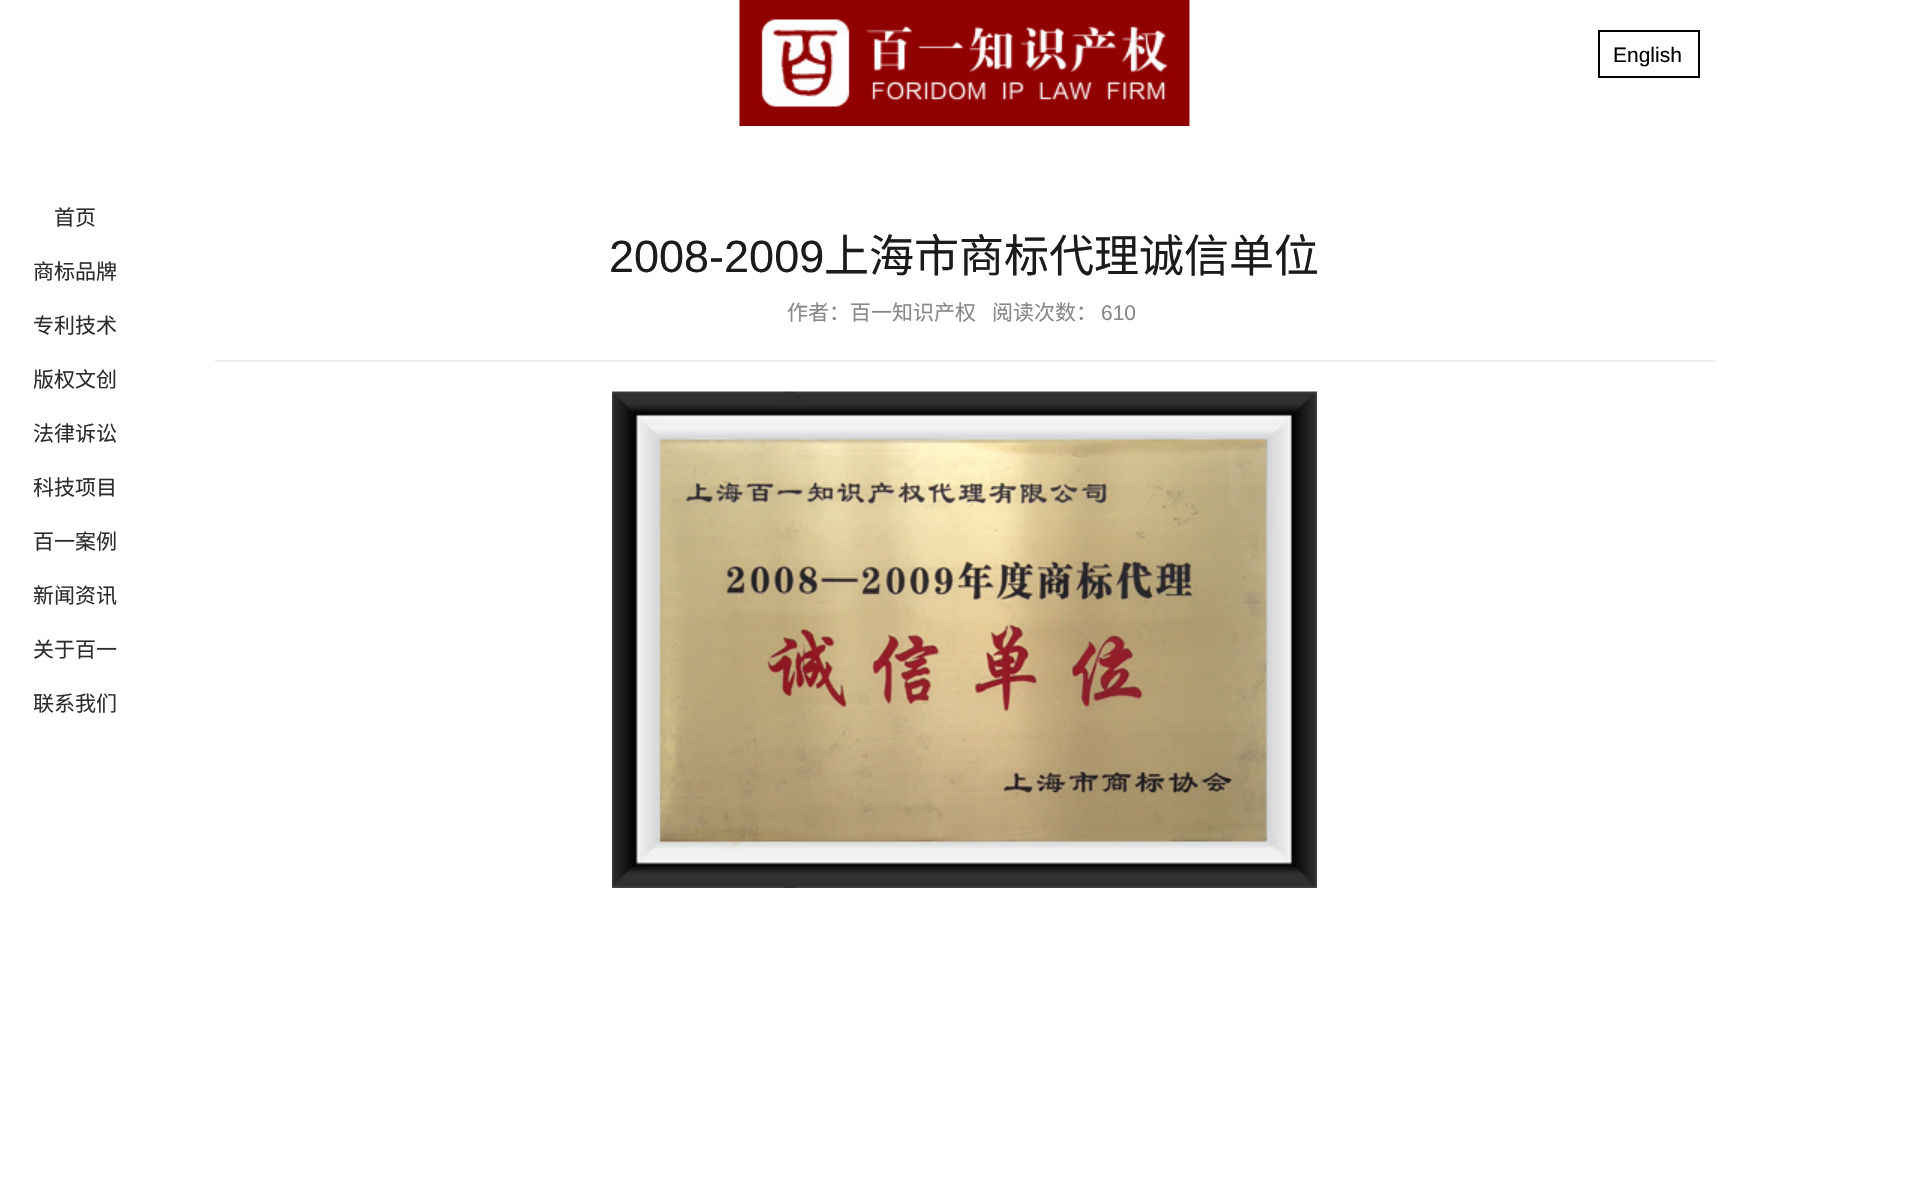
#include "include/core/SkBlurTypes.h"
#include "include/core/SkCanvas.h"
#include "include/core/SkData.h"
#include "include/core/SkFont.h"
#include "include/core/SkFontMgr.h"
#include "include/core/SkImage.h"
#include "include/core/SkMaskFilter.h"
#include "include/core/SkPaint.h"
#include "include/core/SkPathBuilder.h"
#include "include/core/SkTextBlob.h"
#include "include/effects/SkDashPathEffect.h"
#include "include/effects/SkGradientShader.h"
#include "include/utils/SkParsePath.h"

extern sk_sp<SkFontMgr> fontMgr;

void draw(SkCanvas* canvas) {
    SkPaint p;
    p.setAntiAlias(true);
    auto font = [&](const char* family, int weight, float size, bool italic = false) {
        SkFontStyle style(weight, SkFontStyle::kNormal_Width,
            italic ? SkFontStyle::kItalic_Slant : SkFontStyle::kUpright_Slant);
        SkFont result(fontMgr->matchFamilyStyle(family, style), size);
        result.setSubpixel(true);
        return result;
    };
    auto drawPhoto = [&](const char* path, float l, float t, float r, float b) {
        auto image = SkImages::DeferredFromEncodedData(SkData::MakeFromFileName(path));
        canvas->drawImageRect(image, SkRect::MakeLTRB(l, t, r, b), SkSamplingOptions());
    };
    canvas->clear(0xFFFFFFFF);
    drawPhoto("media/1.png", 739, 0, 1190, 126);
    p.setStyle(SkPaint::kStroke_Style);
    p.setStrokeWidth(2);
    p.setColor(0xFF000000);
    canvas->drawRect(SkRect::MakeLTRB(1599, 31, 1699, 77), p);
    auto font1 = font("Liberation Sans", 400, 21);
    p.setStyle(SkPaint::kFill_Style);
    canvas->drawString("English", 1613, 62, font1, p);
    auto font2 = font("Noto Sans CJK SC", 400, 21);
    p.setColor(0xFF2C2C2C);
    {
        const struct { const char* s; float x, y; } items[] = {
            {"首页", 54, 225},
            {"商标品牌", 33, 279},
            {"专利技术", 33, 333},
            {"版权文创", 33, 387},
            {"法律诉讼", 33, 441},
            {"科技项目", 33, 495},
            {"百一案例", 33, 549},
            {"新闻资讯", 33, 603},
            {"关于百一", 33, 657},
            {"联系我们", 33, 711},
        };
        for (auto [s, x, y] : items) {
            canvas->drawString(s, x, y, font2, p);
        }
    }
    auto font3 = font("Liberation Sans", 400, 45);
    p.setColor(0xFF1B1B1B);
    canvas->drawString("2008-2009", 609, 272, font3, p);
    auto font4 = font("Noto Sans CJK SC", 400, 45);
    canvas->drawString("上海市商标代理诚信单位", 824, 272, font4, p);
    p.setColor(0xFF888888);
    canvas->drawString("作者：百一知识产权", 787, 320, font2, p);
    canvas->drawString("阅读次数：", 992, 320, font2, p);
    canvas->drawString("610", 1101, 320, font1, p);
    p.setColor(0xFFEEEEEE);
    canvas->drawRect(SkRect::MakeLTRB(215, 360, 1715, 362), p);
    drawPhoto("media/2.png", 612, 391, 1317, 888);
}
